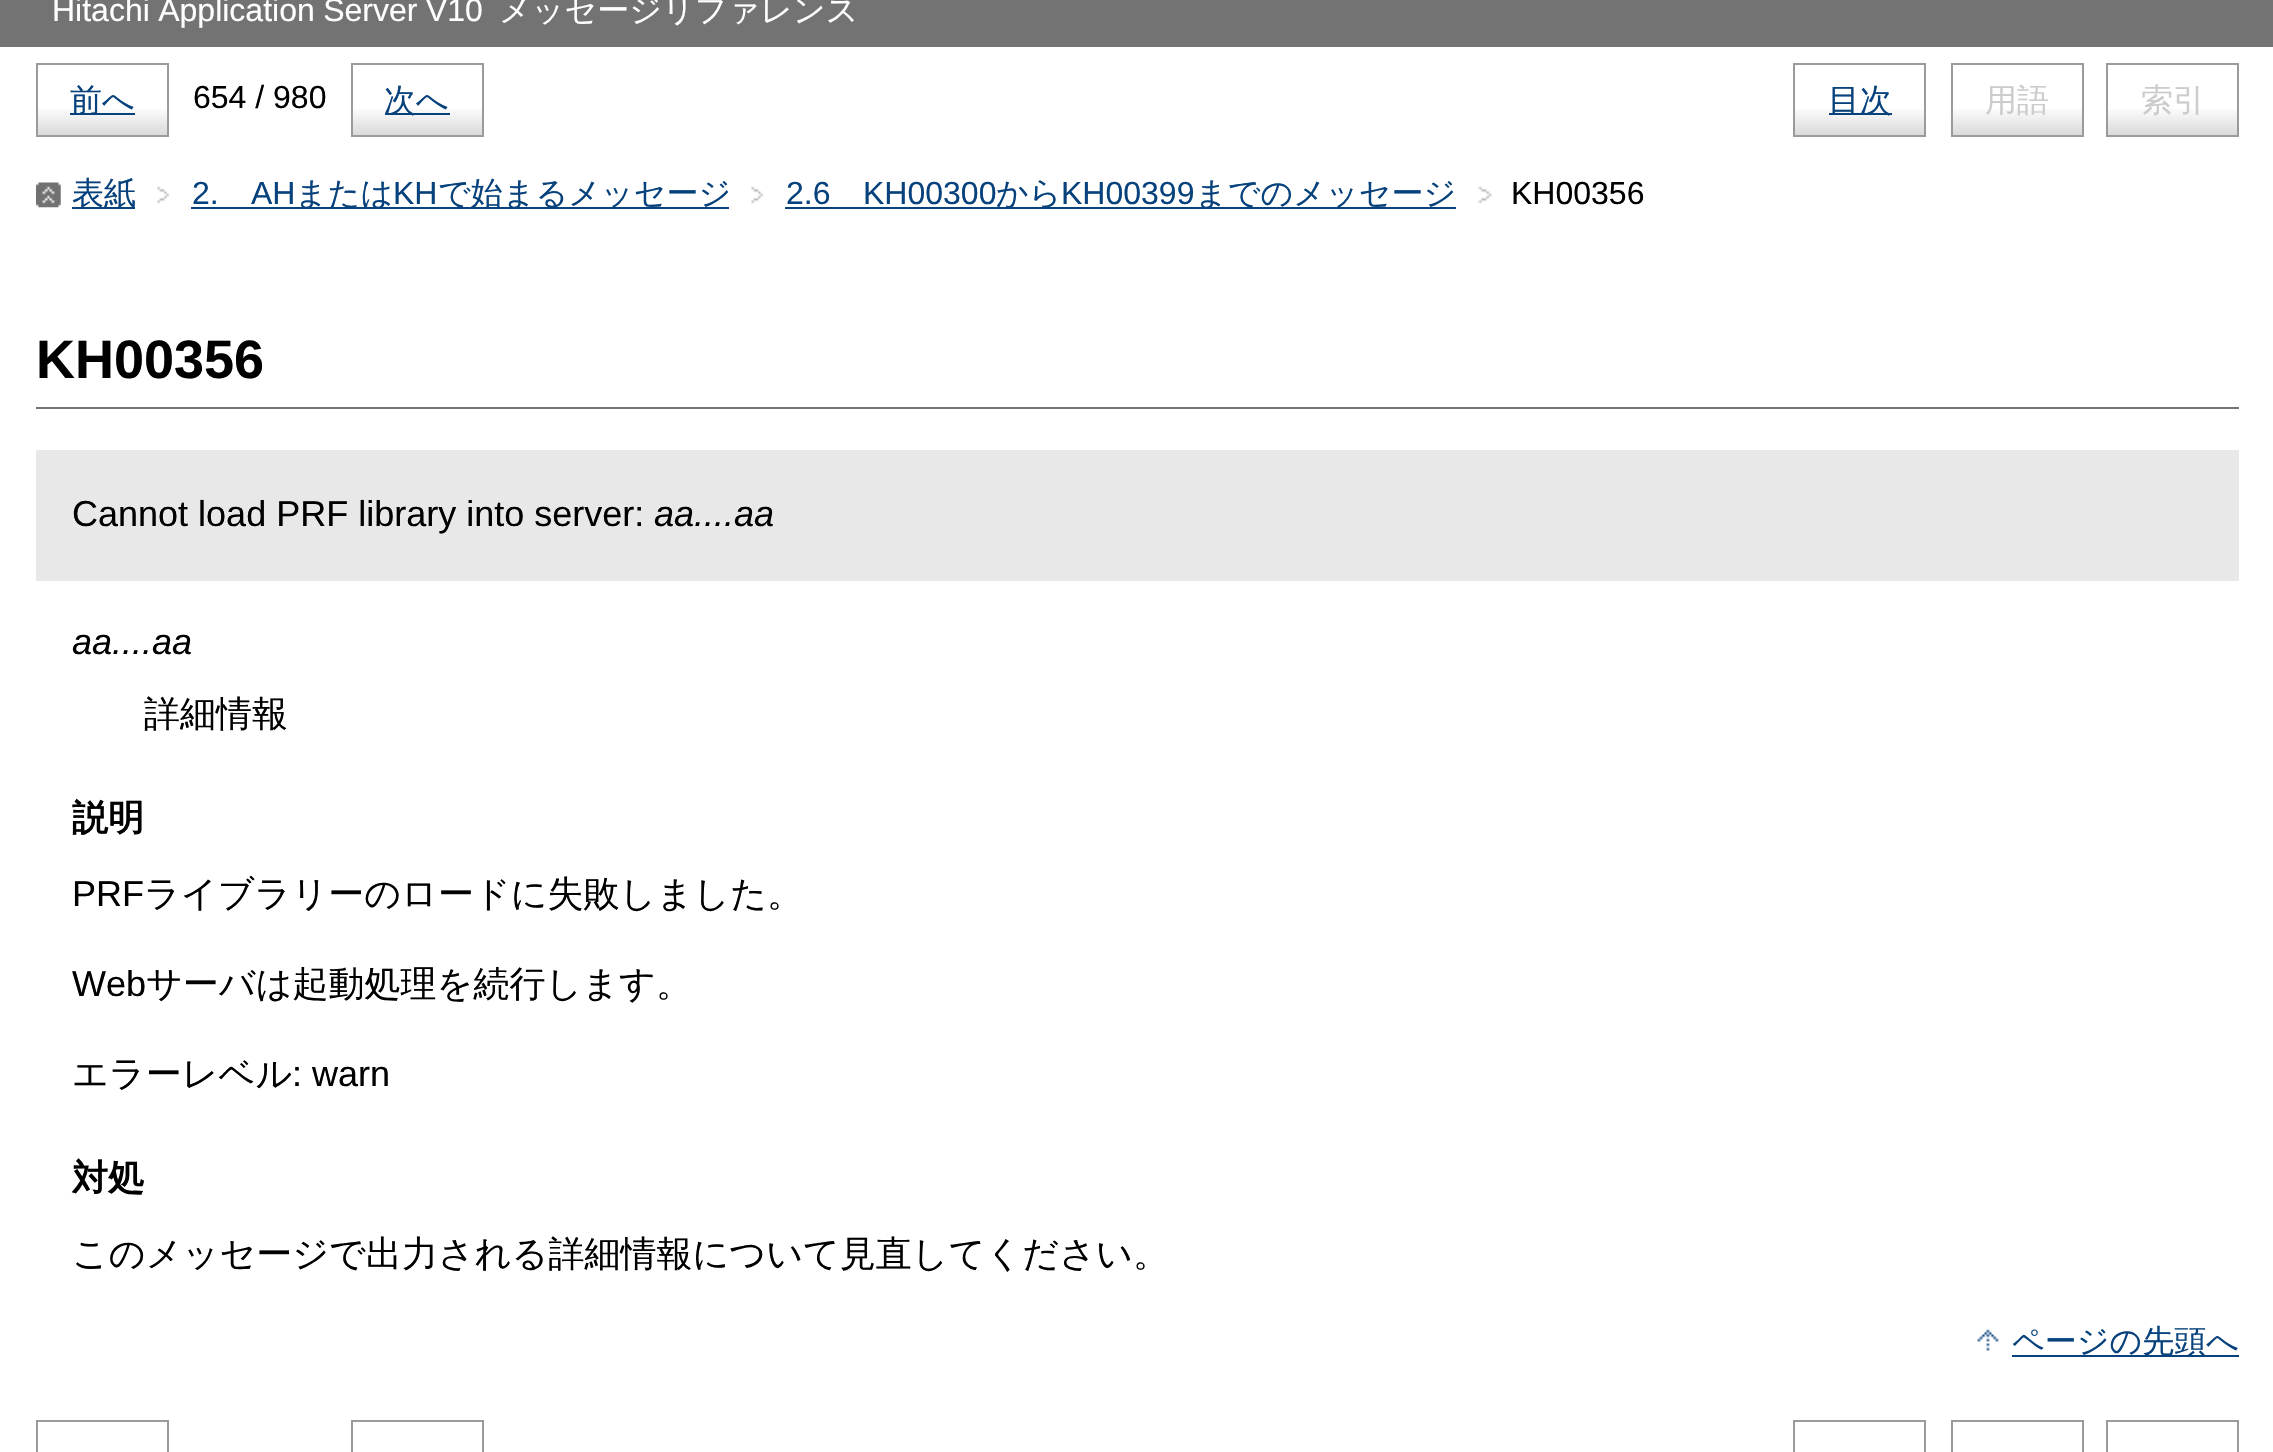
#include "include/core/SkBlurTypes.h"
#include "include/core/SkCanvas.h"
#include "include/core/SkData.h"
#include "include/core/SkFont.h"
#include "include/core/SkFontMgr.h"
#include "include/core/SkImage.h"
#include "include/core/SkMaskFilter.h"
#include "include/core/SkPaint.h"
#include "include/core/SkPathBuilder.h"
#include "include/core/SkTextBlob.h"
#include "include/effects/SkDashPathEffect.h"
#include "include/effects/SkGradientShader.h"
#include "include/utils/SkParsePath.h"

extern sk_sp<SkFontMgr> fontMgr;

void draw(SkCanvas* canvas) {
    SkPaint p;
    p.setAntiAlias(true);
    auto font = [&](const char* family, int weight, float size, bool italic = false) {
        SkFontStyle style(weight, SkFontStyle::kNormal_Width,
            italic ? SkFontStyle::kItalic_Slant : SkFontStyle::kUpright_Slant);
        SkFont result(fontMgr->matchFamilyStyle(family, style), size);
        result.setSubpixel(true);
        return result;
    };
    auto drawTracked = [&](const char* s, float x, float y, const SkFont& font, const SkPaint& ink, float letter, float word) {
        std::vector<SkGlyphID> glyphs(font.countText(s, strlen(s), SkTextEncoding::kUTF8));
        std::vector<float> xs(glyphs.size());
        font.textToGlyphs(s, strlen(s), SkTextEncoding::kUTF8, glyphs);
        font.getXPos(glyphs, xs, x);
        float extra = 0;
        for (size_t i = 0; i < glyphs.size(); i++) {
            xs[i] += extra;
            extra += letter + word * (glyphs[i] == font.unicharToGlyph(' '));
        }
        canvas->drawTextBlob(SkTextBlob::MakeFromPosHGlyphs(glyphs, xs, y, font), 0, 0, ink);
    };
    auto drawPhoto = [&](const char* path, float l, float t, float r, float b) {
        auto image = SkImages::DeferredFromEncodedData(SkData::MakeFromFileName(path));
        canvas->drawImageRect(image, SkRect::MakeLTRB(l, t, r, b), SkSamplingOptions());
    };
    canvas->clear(0xFFFFFFFF);
    p.setColor(0xFF737373);
    canvas->drawRect(SkRect::MakeLTRB(0, 0, 2273, 47), p);
    auto font1 = font("Liberation Sans", 400, 32);
    p.setColor(0xFFFFFFFF);
    drawTracked("Hitachi Application Server V10", 52, 21, font1, p, 0, -0.5f);
    auto font2 = font("WenQuanYi Zen Hei", 500, 32);
    canvas->drawString("メッセージリファレンス", 499, 21, font2, p);
    drawPhoto("media/1.png", 38, 109, 167, 135);
    p.setStyle(SkPaint::kStroke_Style);
    p.setStrokeWidth(2);
    p.setColor(0xFF9C9A9A);
    canvas->drawRect(SkRect::MakeLTRB(37, 64, 168, 136), p);
    p.setStyle(SkPaint::kFill_Style);
    p.setColor(0xFF08427C);
    canvas->drawRect(SkRect::MakeLTRB(70, 113, 135, 115), p);
    canvas->drawString("前へ", 70, 111, font2, p);
    p.setColor(0xFF000000);
    canvas->drawString("654 / 980", 193, 108, font1, p);
    drawPhoto("media/1.png", 353, 109, 482, 135);
    p.setStyle(SkPaint::kStroke_Style);
    p.setColor(0xFF9C9A9A);
    canvas->drawRect(SkRect::MakeLTRB(352, 64, 483, 136), p);
    p.setStyle(SkPaint::kFill_Style);
    p.setColor(0xFF08427C);
    canvas->drawRect(SkRect::MakeLTRB(385, 113, 450, 115), p);
    canvas->drawString("次へ", 384, 111, font2, p);
    drawPhoto("media/1.png", 1795, 109, 1924, 135);
    p.setStyle(SkPaint::kStroke_Style);
    p.setColor(0xFF9C9A9A);
    canvas->drawRect(SkRect::MakeLTRB(1794, 64, 1925, 136), p);
    p.setStyle(SkPaint::kFill_Style);
    p.setColor(0xFF08427C);
    canvas->drawRect(SkRect::MakeLTRB(1829, 113, 1892, 115), p);
    canvas->drawString("目次", 1828, 111, font2, p);
    drawPhoto("media/2.png", 1950, 109, 2082, 136);
    p.setStyle(SkPaint::kStroke_Style);
    p.setColor(0xFF9C9A9A);
    canvas->drawRect(SkRect::MakeLTRB(1952, 64, 2083, 136), p);
    p.setStyle(SkPaint::kFill_Style);
    p.setColor(0xFFCCCCCC);
    canvas->drawString("用語", 1985, 111, font2, p);
    drawPhoto("media/1.png", 2108, 109, 2237, 135);
    p.setStyle(SkPaint::kStroke_Style);
    p.setColor(0xFF9C9A9A);
    canvas->drawRect(SkRect::MakeLTRB(2107, 64, 2238, 136), p);
    p.setStyle(SkPaint::kFill_Style);
    p.setColor(0xFFCCCCCC);
    canvas->drawString("索引", 2141, 111, font2, p);
    drawPhoto("media/3.png", 36, 182, 61, 208);
    p.setColor(0xFF08427C);
    canvas->drawRect(SkRect::MakeLTRB(72, 207, 135, 209), p);
    canvas->drawString("表紙", 72, 204, font2, p);
    drawPhoto("media/4.png", 157, 186, 170, 204);
    canvas->drawString("2.", 192, 204, font1, p);
    canvas->drawString("AH", 251, 204, font1, p);
    canvas->drawRect(SkRect::MakeLTRB(191, 207, 729, 209), p);
    canvas->drawString("または", 295, 204, font2, p);
    canvas->drawString("KH", 393, 204, font1, p);
    canvas->drawString("で始まるメッセージ", 438, 204, font2, p);
    drawPhoto("media/4.png", 751, 186, 764, 204);
    canvas->drawString("2.6", 786, 204, font1, p);
    canvas->drawString("KH00300", 863, 204, font1, p);
    canvas->drawRect(SkRect::MakeLTRB(785, 207, 1456, 209), p);
    canvas->drawString("から", 996, 204, font2, p);
    canvas->drawString("KH00399", 1061, 204, font1, p);
    canvas->drawString("までのメッセージ", 1195, 204, font2, p);
    drawPhoto("media/5.png", 1478, 186, 1492, 204);
    p.setColor(0xFF000000);
    canvas->drawString("KH00356", 1511, 204, font1, p);
    p.setColor(0xFF737373);
    canvas->drawRect(SkRect::MakeLTRB(36, 407, 2239, 409), p);
    auto font3 = font("Liberation Sans", 700, 54);
    p.setColor(0xFF000000);
    canvas->drawString("KH00356", 36, 378, font3, p);
    p.setColor(0xFFE8E8E8);
    canvas->drawRect(SkRect::MakeLTRB(36, 450, 2239, 581), p);
    auto font4 = font("Liberation Sans", 400, 36);
    p.setColor(0xFF000000);
    canvas->drawString("Cannot load PRF library into server:", 72, 526, font4, p);
    auto font5 = font("Liberation Sans", 400, 36, true);
    canvas->drawString("aa....aa", 654, 526, font5, p);
    canvas->drawString("aa....aa", 72, 654, font5, p);
    auto font6 = font("WenQuanYi Zen Hei", 500, 36);
    canvas->drawString("詳細情報", 144, 726, font6, p);
    auto font7 = font("WenQuanYi Zen Hei", 700, 36);
    canvas->drawString("説明", 72, 830, font7, p);
    canvas->drawString("PRF", 72, 906, font4, p);
    canvas->drawString("ライブラリーのロードに失敗しました。", 144, 906, font6, p);
    canvas->drawString("Web", 72, 996, font4, p);
    canvas->drawString("サーバは起動処理を続行します。", 146, 996, font6, p);
    canvas->drawString("エラーレベル", 72, 1086, font6, p);
    canvas->drawString(": warn", 292, 1086, font4, p);
    canvas->drawString("対処", 72, 1190, font7, p);
    canvas->drawString("このメッセージで出力される詳細情報について見直してください。", 72, 1266, font6, p);
    drawPhoto("media/6.png", 1977, 1329, 1999, 1351);
    p.setColor(0xFF08427C);
    canvas->drawRect(SkRect::MakeLTRB(2012, 1355, 2239, 1357), p);
    canvas->drawString("ページの先頭へ", 2012, 1352, font2, p);
    p.setStyle(SkPaint::kStroke_Style);
    p.setColor(0xFF9C9A9A);
    canvas->drawRect(SkRect::MakeLTRB(37, 1421, 168, 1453), p);
    canvas->drawRect(SkRect::MakeLTRB(352, 1421, 483, 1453), p);
    canvas->drawRect(SkRect::MakeLTRB(1794, 1421, 1925, 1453), p);
    canvas->drawRect(SkRect::MakeLTRB(1952, 1421, 2083, 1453), p);
    canvas->drawRect(SkRect::MakeLTRB(2107, 1421, 2238, 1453), p);
}
